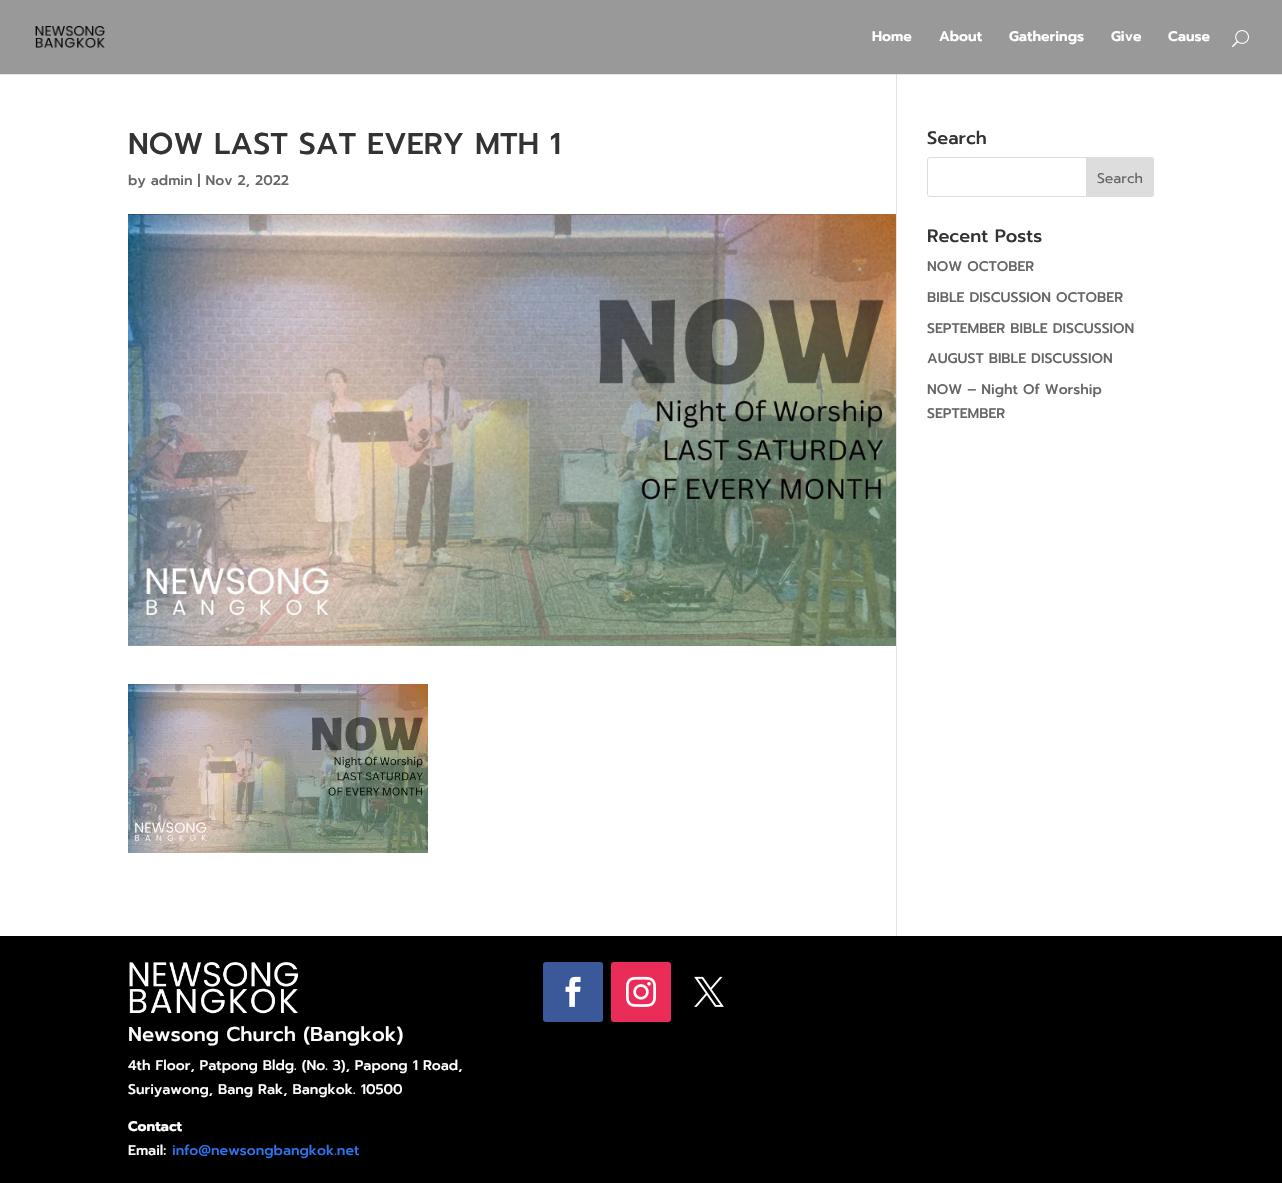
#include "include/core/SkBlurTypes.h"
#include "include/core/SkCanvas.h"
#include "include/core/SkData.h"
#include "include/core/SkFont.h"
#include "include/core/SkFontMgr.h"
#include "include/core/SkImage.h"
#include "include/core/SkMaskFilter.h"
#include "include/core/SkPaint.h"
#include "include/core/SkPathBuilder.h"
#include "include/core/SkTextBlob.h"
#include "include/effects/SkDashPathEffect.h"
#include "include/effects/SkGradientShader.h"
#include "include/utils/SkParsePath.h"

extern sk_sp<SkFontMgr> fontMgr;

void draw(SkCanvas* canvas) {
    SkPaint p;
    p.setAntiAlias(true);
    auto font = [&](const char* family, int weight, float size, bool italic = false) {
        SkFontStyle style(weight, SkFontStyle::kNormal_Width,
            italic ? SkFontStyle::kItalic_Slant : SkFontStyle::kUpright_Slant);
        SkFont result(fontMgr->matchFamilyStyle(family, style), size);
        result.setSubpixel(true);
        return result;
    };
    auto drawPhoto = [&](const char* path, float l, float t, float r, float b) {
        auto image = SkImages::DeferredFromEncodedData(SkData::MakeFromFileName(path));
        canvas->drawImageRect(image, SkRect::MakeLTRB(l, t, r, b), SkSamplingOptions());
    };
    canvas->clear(0xFFFFFFFF);
    {
        const struct { float l, t, r, b; SkColor color; } items[] = {
            {0, 74, 1282, 75, 0xFFE6E6E6},
            {896, 71, 897, 936, 0xFFE2E2E2},
            {0, 0, 1282, 74, 0xFF999999},
        };
        for (auto [l, t, r, b, color] : items) {
            p.setColor(color);
            canvas->drawRect(SkRect::MakeLTRB(l, t, r, b), p);
        }
    }
    drawPhoto("media/1.png", 35, 26, 105, 48);
    auto font1 = font("Prompt", 600, 14);
    p.setColor(0xFFFFFFFF);
    {
        const struct { const char* s; float x, y; } items[] = {
            {"Home", 872, 41},
            {"About", 939, 41},
            {"Gatherings", 1009, 41},
            {"Give", 1111, 41},
            {"Cause", 1168, 41},
        };
        for (auto [s, x, y] : items) {
            canvas->drawString(s, x, y, font1, p);
        }
    }
    drawPhoto("media/2.png", 1232, 30, 1249, 47);
    p.setColor(0xFFCBCBCB);
    canvas->drawRect(SkRect::MakeLTRB(896, 74, 897, 75), p);
    auto font2 = font("Prompt", 500, 30);
    p.setColor(0xFF333333);
    canvas->drawString("NOW LAST SAT EVERY MTH 1", 128, 154, font2, p);
    auto font3 = font("Prompt", 500, 14);
    p.setColor(0xFF666666);
    canvas->drawString("by admin | Nov 2, 2022", 128, 185, font3, p);
    drawPhoto("media/3.png", 128, 214, 896, 646);
    drawPhoto("media/4.png", 128, 684, 428, 853);
    auto font4 = font("Prompt", 500, 18);
    p.setColor(0xFF333333);
    canvas->drawString("Search", 927, 144, font4, p);
    p.setStyle(SkPaint::kStroke_Style);
    p.setStrokeWidth(1);
    p.setColor(0xFFDDDDDD);
    canvas->drawRoundRect(SkRect::MakeLTRB(927.5f, 157.5f, 1153.5f, 196.5f), 2.5f, 2.5f, p);
    p.setStyle(SkPaint::kFill_Style);
    canvas->drawPath(SkPathBuilder().moveTo(1086.5f, 157.5f).lineTo(1151, 157.5f).cubicTo(1152.5f, 157.5f, 1153.5f, 158.5f, 1153.5f, 160).lineTo(1153.5f, 194).cubicTo(1153.5f, 195.5f, 1152.5f, 196.5f, 1151, 196.5f).lineTo(1086.5f, 196.5f).close().detach(), p);
    p.setStyle(SkPaint::kStroke_Style);
    canvas->drawPath(SkPathBuilder().moveTo(1086.5f, 157.5f).lineTo(1151, 157.5f).cubicTo(1152.5f, 157.5f, 1153.5f, 158.5f, 1153.5f, 160).lineTo(1153.5f, 194).cubicTo(1153.5f, 195.5f, 1152.5f, 196.5f, 1151, 196.5f).lineTo(1086.5f, 196.5f).close().detach(), p);
    auto font5 = font("Prompt", 400, 14);
    p.setStyle(SkPaint::kFill_Style);
    p.setColor(0xFF666666);
    canvas->drawString("Search", 1097, 183, font5, p);
    p.setColor(0xFF333333);
    canvas->drawString("Recent Posts", 927, 242, font4, p);
    p.setColor(0xFF666666);
    {
        const struct { const char* s; float x, y; } items[] = {
            {"NOW OCTOBER", 927, 271},
            {"BIBLE DISCUSSION OCTOBER", 927, 302},
            {"SEPTEMBER BIBLE DISCUSSION", 927, 333},
            {"AUGUST BIBLE DISCUSSION", 927, 363},
            {"NOW – Night Of Worship", 927, 394},
            {"SEPTEMBER", 927, 418},
        };
        for (auto [s, x, y] : items) {
            canvas->drawString(s, x, y, font3, p);
        }
    }
    p.setColor(0xFF000000);
    canvas->drawRect(SkRect::MakeLTRB(0, 936, 1282, 1183), p);
    p.setColor(0xFF3B5998);
    canvas->drawRoundRect(SkRect::MakeLTRB(543, 962, 603, 1022), 3, 3, p);
    drawPhoto("media/5.png", 565, 976, 581, 1007);
    p.setColor(0xFFEA2C59);
    canvas->drawRoundRect(SkRect::MakeLTRB(611, 962, 671, 1022), 3, 3, p);
    drawPhoto("media/6.png", 626, 976, 656, 1007);
    drawPhoto("media/7.png", 694, 976, 724, 1007);
    drawPhoto("media/8.png", 129, 962, 299, 1014);
    auto font6 = font("Prompt", 500, 20);
    p.setColor(0xFFFFFFFF);
    canvas->drawString("Newsong Church (Bangkok)", 128, 1041, font6, p);
    canvas->drawString("4th Floor, Patpong Bldg. (No. 3), Papong 1 Road,", 128, 1070, font3, p);
    canvas->drawString("Suriyawong, Bang Rak, Bangkok. 10500", 128, 1094, font3, p);
    auto font7 = font("Prompt", 700, 14);
    canvas->drawString("Contact", 128, 1131, font7, p);
    canvas->drawString("Email:", 128, 1155, font3, p);
    p.setColor(0xFF2D74EF);
    canvas->drawString("info@newsongbangkok.net", 172, 1155, font3, p);
}
